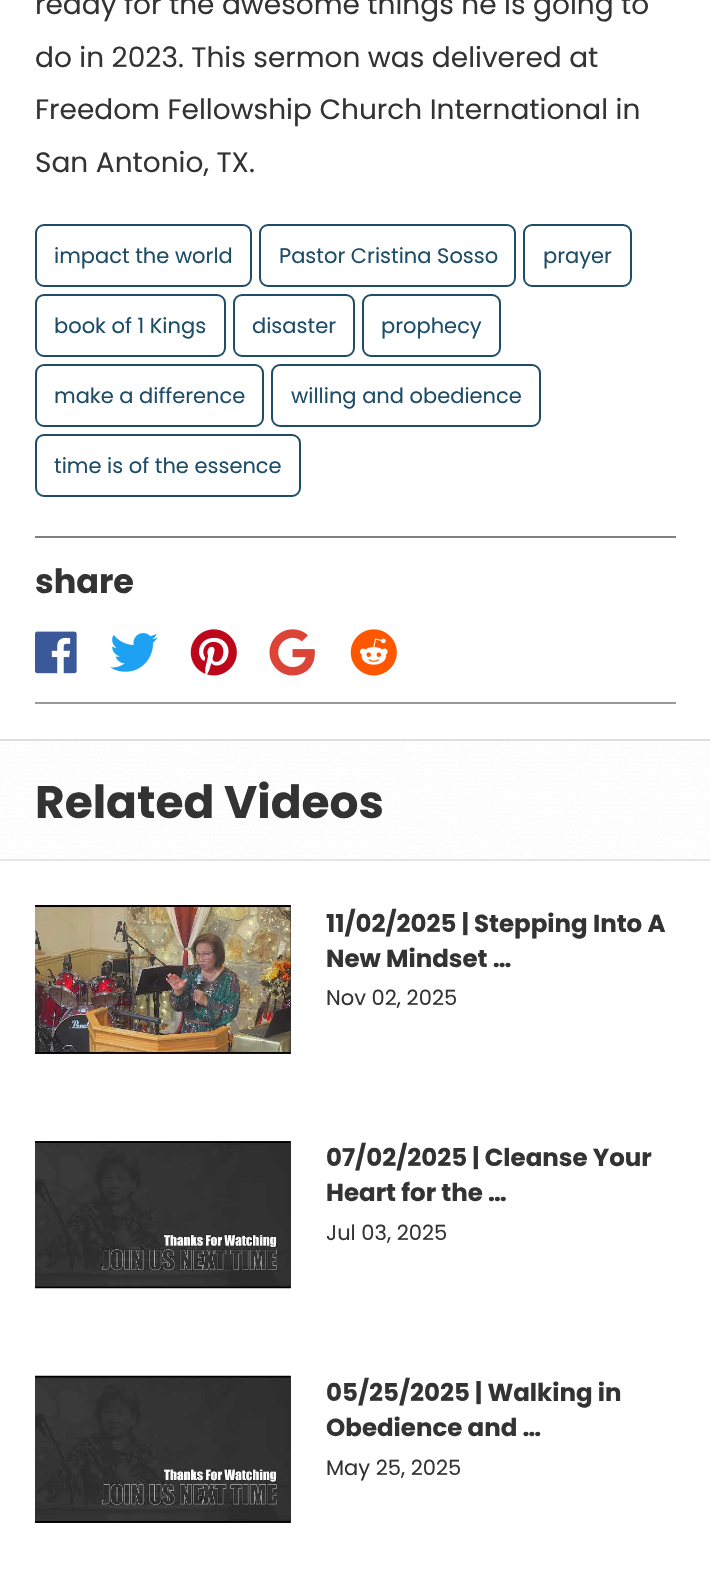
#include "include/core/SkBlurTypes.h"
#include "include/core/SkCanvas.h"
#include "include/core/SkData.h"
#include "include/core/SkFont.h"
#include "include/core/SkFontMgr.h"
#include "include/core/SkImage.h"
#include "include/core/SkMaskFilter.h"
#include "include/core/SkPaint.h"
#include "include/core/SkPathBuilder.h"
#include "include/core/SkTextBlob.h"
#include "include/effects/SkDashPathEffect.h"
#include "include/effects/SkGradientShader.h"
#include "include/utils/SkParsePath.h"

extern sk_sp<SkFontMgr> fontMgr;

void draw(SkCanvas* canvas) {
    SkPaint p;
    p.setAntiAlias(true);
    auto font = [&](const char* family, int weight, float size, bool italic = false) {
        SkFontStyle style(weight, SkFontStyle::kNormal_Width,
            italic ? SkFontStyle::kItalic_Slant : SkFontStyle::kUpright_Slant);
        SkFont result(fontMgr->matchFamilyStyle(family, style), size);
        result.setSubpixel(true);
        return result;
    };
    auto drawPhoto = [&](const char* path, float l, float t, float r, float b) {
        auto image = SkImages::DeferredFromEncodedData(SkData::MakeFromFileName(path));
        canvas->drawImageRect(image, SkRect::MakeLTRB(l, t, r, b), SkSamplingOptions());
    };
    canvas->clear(0xFFFFFFFF);
    drawPhoto("media/1.png", 0, 741, 710, 859);
    auto font1 = font("Poppins", 400, 28);
    p.setColor(0xFF333333);
    {
        const struct { const char* s; float x, y; } items[] = {
            {"ready for the awesome things he is going to", 35, 14},
            {"do in 2023. This sermon was delivered at", 35, 67},
            {"Freedom Fellowship Church International in", 35, 119},
            {"San Antonio, TX.", 35, 172},
        };
        for (auto [s, x, y] : items) {
            canvas->drawString(s, x, y, font1, p);
        }
    }
    p.setStyle(SkPaint::kStroke_Style);
    p.setStrokeWidth(2);
    p.setColor(0xFF1E4D68);
    canvas->drawRoundRect(SkRect::MakeLTRB(36, 225, 251, 286), 8, 8, p);
    auto font2 = font("Poppins", 400, 21);
    p.setStyle(SkPaint::kFill_Style);
    canvas->drawString("impact the world", 54, 263, font2, p);
    p.setStyle(SkPaint::kStroke_Style);
    canvas->drawRoundRect(SkRect::MakeLTRB(260, 225, 515, 286), 8, 8, p);
    p.setStyle(SkPaint::kFill_Style);
    canvas->drawString("Pastor Cristina Sosso", 279, 263, font2, p);
    p.setStyle(SkPaint::kStroke_Style);
    canvas->drawRoundRect(SkRect::MakeLTRB(524, 225, 631, 286), 8, 8, p);
    p.setStyle(SkPaint::kFill_Style);
    canvas->drawString("prayer", 543, 263, font2, p);
    p.setStyle(SkPaint::kStroke_Style);
    canvas->drawRoundRect(SkRect::MakeLTRB(36, 295, 225, 356), 8, 8, p);
    p.setStyle(SkPaint::kFill_Style);
    canvas->drawString("book of 1 Kings", 54, 333, font2, p);
    p.setStyle(SkPaint::kStroke_Style);
    canvas->drawRoundRect(SkRect::MakeLTRB(234, 295, 354, 356), 8, 8, p);
    p.setStyle(SkPaint::kFill_Style);
    canvas->drawString("disaster", 252, 333, font2, p);
    p.setStyle(SkPaint::kStroke_Style);
    canvas->drawRoundRect(SkRect::MakeLTRB(363, 295, 500, 356), 8, 8, p);
    p.setStyle(SkPaint::kFill_Style);
    canvas->drawString("prophecy", 381, 333, font2, p);
    p.setStyle(SkPaint::kStroke_Style);
    canvas->drawRoundRect(SkRect::MakeLTRB(36, 365, 263, 426), 8, 8, p);
    p.setStyle(SkPaint::kFill_Style);
    canvas->drawString("make a difference", 54, 403, font2, p);
    p.setStyle(SkPaint::kStroke_Style);
    canvas->drawRoundRect(SkRect::MakeLTRB(272, 365, 540, 426), 8, 8, p);
    p.setStyle(SkPaint::kFill_Style);
    canvas->drawString("willing and obedience", 291, 403, font2, p);
    p.setStyle(SkPaint::kStroke_Style);
    canvas->drawRoundRect(SkRect::MakeLTRB(36, 435, 300, 496), 8, 8, p);
    p.setStyle(SkPaint::kFill_Style);
    canvas->drawString("time is of the essence", 54, 473, font2, p);
    p.setColor(0xFF808080);
    canvas->drawRect(SkRect::MakeLTRB(35, 536, 676, 538), p);
    p.setColor(0xFF999999);
    canvas->drawRect(SkRect::MakeLTRB(35, 702, 676, 704), p);
    auto font3 = font("Poppins", 700, 33.5f);
    p.setColor(0xFF333333);
    canvas->drawString("share", 35, 593, font3, p);
    drawPhoto("media/2.png", 35, 631, 77, 674);
    drawPhoto("media/3.png", 110, 633, 158, 672);
    drawPhoto("media/4.png", 190, 629, 237, 676);
    drawPhoto("media/5.png", 269, 629, 315, 676);
    drawPhoto("media/6.png", 350, 629, 397, 676);
    p.setColor(0xBFFFFFFF);
    canvas->drawRect(SkRect::MakeLTRB(0, 741, 710, 859), p);
    p.setColor(0xFFDEDEDE);
    canvas->drawRect(SkRect::MakeLTRB(0, 739, 710, 741), p);
    auto font4 = font("Poppins", 700, 45.5f);
    p.setColor(0xFF333333);
    canvas->drawString("Related Videos", 35, 818, font4, p);
    p.setColor(0xFFE6E6E6);
    canvas->drawRect(SkRect::MakeLTRB(0, 859, 710, 861), p);
    p.setColor(0xFF333333);
    canvas->drawRect(SkRect::MakeLTRB(35, 905, 291, 1054), p);
    drawPhoto("media/7.png", 35, 905, 291, 1054);
    auto font5 = font("Poppins", 700, 24.5f);
    canvas->drawString("11/02/2025 | Stepping Into A", 326, 932, font5, p);
    canvas->drawString("New Mindset …", 326, 967, font5, p);
    canvas->drawString("Nov 02, 2025", 326, 1005, font2, p);
    canvas->drawRect(SkRect::MakeLTRB(35, 1141, 291, 1288), p);
    drawPhoto("media/8.png", 35, 1141, 291, 1289);
    canvas->drawString("07/02/2025 | Cleanse Your", 326, 1166, font5, p);
    canvas->drawString("Heart for the …", 326, 1201, font5, p);
    canvas->drawString("Jul 03, 2025", 326, 1240, font2, p);
    canvas->drawRect(SkRect::MakeLTRB(35, 1376, 291, 1523), p);
    drawPhoto("media/9.png", 35, 1375, 291, 1523);
    canvas->drawString("05/25/2025 | Walking in", 326, 1401, font5, p);
    canvas->drawString("Obedience and …", 326, 1436, font5, p);
    canvas->drawString("May 25, 2025", 326, 1475, font2, p);
}
